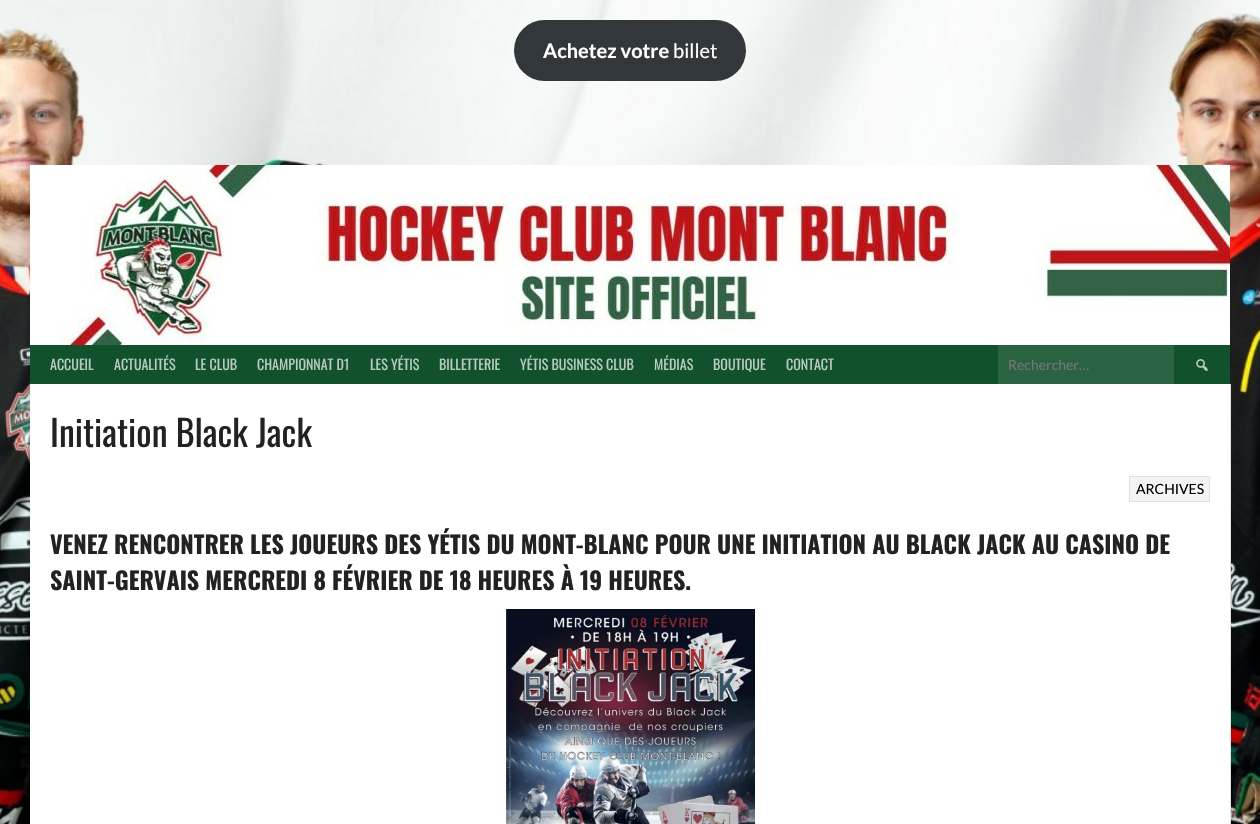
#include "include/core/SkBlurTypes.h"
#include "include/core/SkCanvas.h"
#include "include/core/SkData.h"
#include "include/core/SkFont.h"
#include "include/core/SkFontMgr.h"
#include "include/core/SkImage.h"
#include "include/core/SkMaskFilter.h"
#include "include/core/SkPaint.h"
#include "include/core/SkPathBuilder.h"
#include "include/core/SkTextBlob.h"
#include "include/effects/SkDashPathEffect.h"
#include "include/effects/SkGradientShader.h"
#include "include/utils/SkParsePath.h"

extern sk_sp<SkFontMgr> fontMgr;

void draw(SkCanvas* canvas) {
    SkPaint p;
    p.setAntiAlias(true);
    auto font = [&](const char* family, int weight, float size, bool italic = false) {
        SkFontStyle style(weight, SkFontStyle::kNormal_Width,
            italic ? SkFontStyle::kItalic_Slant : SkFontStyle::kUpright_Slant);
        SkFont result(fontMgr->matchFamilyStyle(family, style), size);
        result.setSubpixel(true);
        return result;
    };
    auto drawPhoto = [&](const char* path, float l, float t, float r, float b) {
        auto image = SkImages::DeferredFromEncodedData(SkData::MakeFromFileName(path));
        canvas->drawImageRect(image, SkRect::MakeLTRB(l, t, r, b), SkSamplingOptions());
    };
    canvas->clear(0xFFFFFFFF);
    drawPhoto("media/1.png", 0, 0, 1260, 824);
    p.setColor(0xFF32373C);
    canvas->drawRoundRect(SkRect::MakeLTRB(514, 20, 746, 81), 30.5f, 30.5f, p);
    auto font1 = font("Lato", 700, 20);
    p.setColor(0xFFFFFFFF);
    canvas->drawString("Achetez votre", 543, 58, font1, p);
    auto font2 = font("Lato", 400, 20);
    canvas->drawString("billet", 673, 58, font2, p);
    drawPhoto("media/2.png", 30, 165, 1230, 345);
    p.setColor(0x33000000);
    p.setMaskFilter(SkMaskFilter::MakeBlur(kNormal_SkBlurStyle, 1.5f));
    canvas->drawRect(SkRect::MakeLTRB(30, 387, 1230, 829), p);
    p.setMaskFilter(nullptr);
    p.setColor(0xFF11522D);
    canvas->drawRect(SkRect::MakeLTRB(30, 345, 1230, 384), p);
    auto font3 = font("Oswald", 400, 14);
    p.setColor(0xFFB8CBC0);
    {
        const struct { const char* s; float x, y; } items[] = {
            {"ACCUEIL", 50, 370},
            {"ACTUALITÉS", 114, 370},
            {"LE CLUB", 195, 370},
            {"CHAMPIONNAT D1", 257, 370},
            {"LES YÉTIS", 370, 370},
            {"BILLETTERIE", 439, 370},
            {"YÉTIS BUSINESS CLUB", 520, 370},
            {"MÉDIAS", 654, 370},
            {"BOUTIQUE", 713, 370},
            {"CONTACT", 786, 370},
        };
        for (auto [s, x, y] : items) {
            canvas->drawString(s, x, y, font3, p);
        }
    }
    p.setColor(0xFF296342);
    canvas->drawRect(SkRect::MakeLTRB(998, 345, 1174, 384), p);
    auto font4 = font("Lato", 400, 14);
    p.setColor(0xFF757575);
    canvas->drawString("Rechercher…", 1008, 370, font4, p);
    drawPhoto("media/3.png", 1196, 359, 1208, 371);
    p.setColor(0xFFFFFFFF);
    canvas->drawRect(SkRect::MakeLTRB(30, 384, 1230, 824), p);
    p.setColor(0xFFE0E0E0);
    canvas->drawRect(SkRect::MakeLTRB(1230, 384, 1231, 824), p);
    auto font5 = font("Oswald", 400, 36);
    p.setColor(0xFF222222);
    canvas->drawString("Initiation Black Jack", 50, 447, font5, p);
    p.setColor(0xFFF4F4F4);
    canvas->drawRect(SkRect::MakeLTRB(1129.5f, 476.5f, 1209.5f, 501.5f), p);
    p.setStyle(SkPaint::kStroke_Style);
    p.setStrokeWidth(1);
    p.setColor(0xFFE0E0E0);
    canvas->drawRect(SkRect::MakeLTRB(1129.5f, 476.5f, 1209.5f, 501.5f), p);
    p.setStyle(SkPaint::kFill_Style);
    p.setColor(0xFF000000);
    canvas->drawString("ARCHIVES", 1136, 494, font4, p);
    auto font6 = font("Oswald", 700, 24);
    p.setColor(0xFF222222);
    canvas->drawString("VENEZ RENCONTRER LES JOUEURS DES YÉTIS DU MONT-BLANC POUR UNE INITIATION AU BLACK JACK AU CASINO DE", 50, 554, font6, p);
    canvas->drawString("SAINT-GERVAIS MERCREDI 8 FÉVRIER DE 18 HEURES À 19 HEURES.", 50, 590, font6, p);
    drawPhoto("media/4.png", 506, 609, 755, 824);
}
